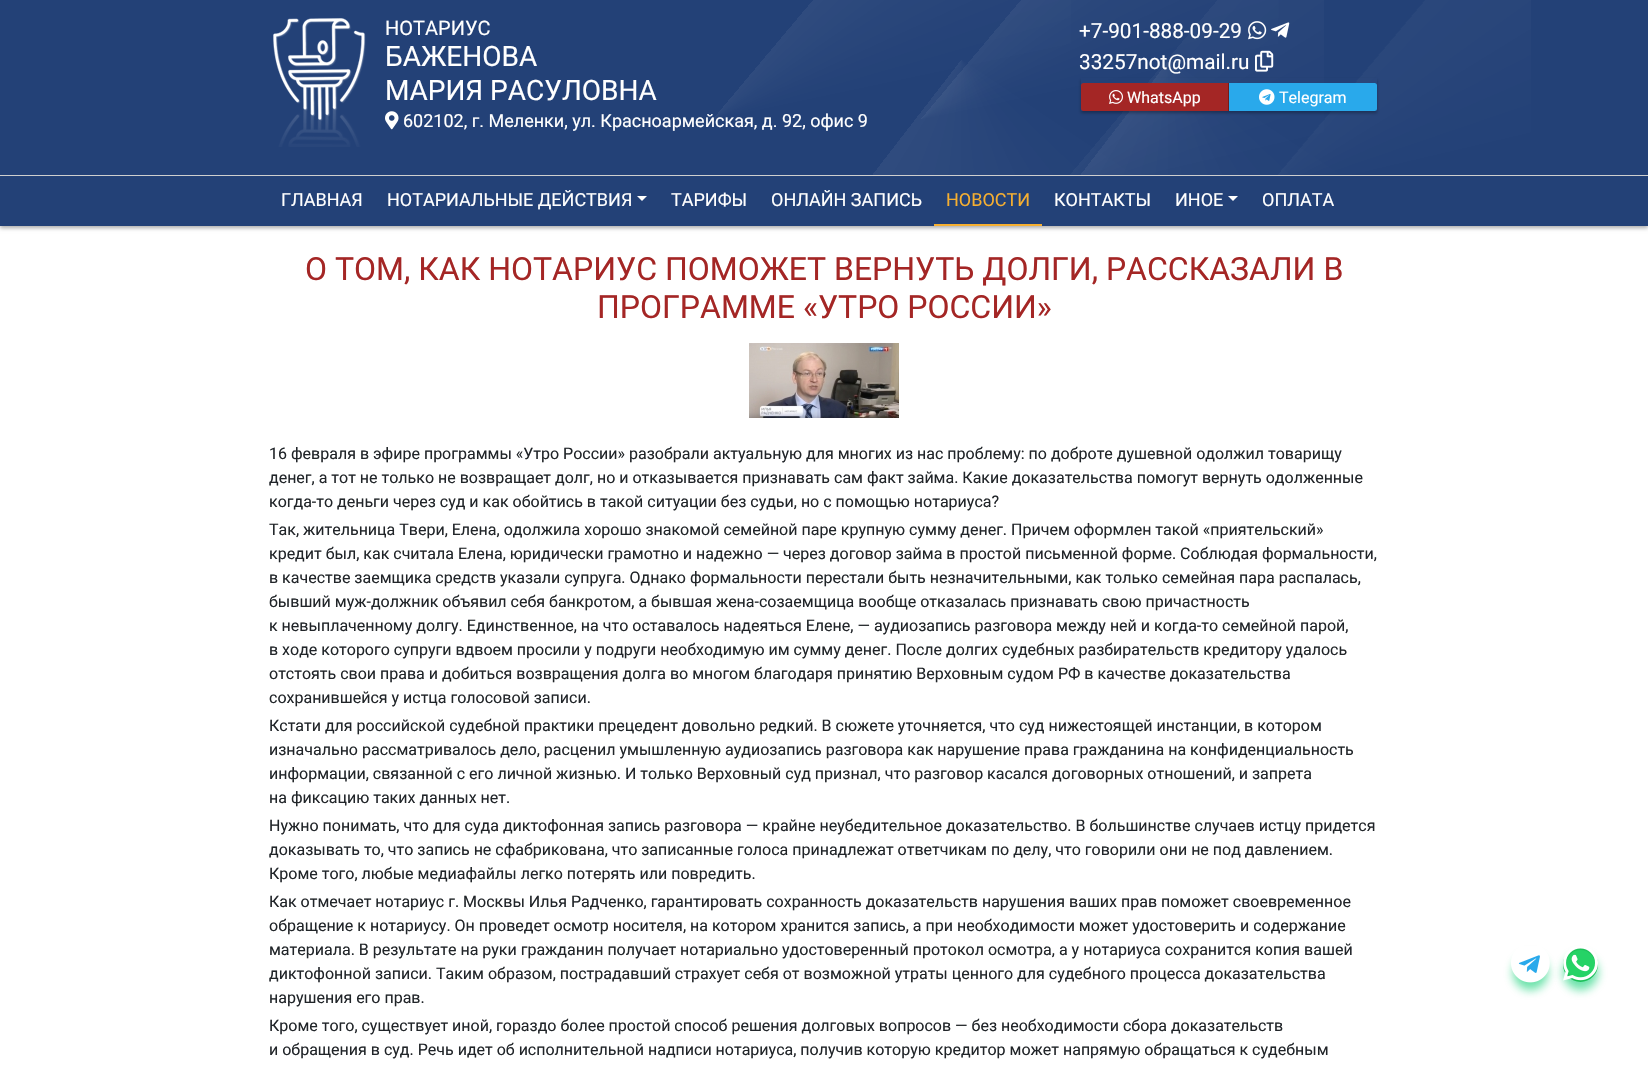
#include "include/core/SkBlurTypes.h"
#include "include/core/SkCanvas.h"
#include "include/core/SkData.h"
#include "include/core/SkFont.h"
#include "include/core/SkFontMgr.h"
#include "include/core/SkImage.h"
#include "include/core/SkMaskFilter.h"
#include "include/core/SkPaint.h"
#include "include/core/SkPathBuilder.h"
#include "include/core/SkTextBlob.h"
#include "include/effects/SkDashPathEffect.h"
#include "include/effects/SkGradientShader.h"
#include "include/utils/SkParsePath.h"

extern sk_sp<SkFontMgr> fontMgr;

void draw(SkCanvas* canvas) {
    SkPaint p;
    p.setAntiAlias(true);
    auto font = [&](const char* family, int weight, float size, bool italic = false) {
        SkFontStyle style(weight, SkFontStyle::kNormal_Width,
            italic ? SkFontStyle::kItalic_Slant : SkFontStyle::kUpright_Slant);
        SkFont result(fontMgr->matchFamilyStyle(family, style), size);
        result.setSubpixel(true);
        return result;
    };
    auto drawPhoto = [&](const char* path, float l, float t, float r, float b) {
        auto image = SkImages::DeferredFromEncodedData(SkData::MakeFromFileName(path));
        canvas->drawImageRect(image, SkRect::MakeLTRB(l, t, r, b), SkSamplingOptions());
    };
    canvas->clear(0xFFFFFFFF);
    p.setColor(0x54000000);
    p.setMaskFilter(SkMaskFilter::MakeBlur(kNormal_SkBlurStyle, 2));
    canvas->drawRect(SkRect::MakeLTRB(0, 2, 1648, 228), p);
    p.setMaskFilter(nullptr);
    p.setColor(0xFF234177);
    canvas->drawRect(SkRect::MakeLTRB(0, 0, 1648, 175), p);
    drawPhoto("media/1.png", 921, 0, 1531, 175);
    drawPhoto("media/2.png", 713, 0, 1324, 175);
    drawPhoto("media/3.png", 273, 18, 366, 147);
    auto font1 = font("Roboto", 400, 20);
    p.setColor(0xFFFFFFFF);
    canvas->drawString("НОТАРИУС", 385, 35, font1, p);
    auto font2 = font("Roboto", 400, 28);
    canvas->drawString("БАЖЕНОВА", 385, 66, font2, p);
    canvas->drawString("МАРИЯ РАСУЛОВНА", 385, 100, font2, p);
    drawPhoto("media/4.png", 385, 111, 399, 130);
    auto font3 = font("Roboto", 400, 18);
    canvas->drawString("602102, г. Меленки, ул. Красноармейская, д. 92, офис 9", 403, 127, font3, p);
    auto font4 = font("Roboto", 400, 20.75f);
    canvas->drawString("+7-901-888-09-29", 1079, 38, font4, p);
    drawPhoto("media/5.png", 1248, 21, 1267, 40);
    drawPhoto("media/6.png", 1271, 22, 1290, 38);
    canvas->drawString("33257not@mail.ru", 1079, 69, font4, p);
    drawPhoto("media/7.png", 1255, 50, 1274, 72);
    canvas->save();
    canvas->clipPath(SkPathBuilder(SkPathFillType::kEvenOdd).moveTo(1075, 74).lineTo(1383, 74).lineTo(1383, 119).lineTo(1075, 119).close().moveTo(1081, 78).lineTo(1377, 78).lineTo(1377, 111).lineTo(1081, 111).close().detach(), true);
    p.setColor(0x4D000000);
    p.setMaskFilter(SkMaskFilter::MakeBlur(kNormal_SkBlurStyle, 1.5f));
    canvas->drawRect(SkRect::MakeLTRB(1081, 80, 1377, 113), p);
    p.setMaskFilter(nullptr);
    canvas->restore();
    p.setColor(0xFFA42625);
    canvas->drawPath(SkPathBuilder().moveTo(1083.5f, 83).lineTo(1229, 83).lineTo(1229, 111).lineTo(1083.5f, 111).cubicTo(1082, 111, 1081, 110, 1081, 108.5f).lineTo(1081, 85.5f).cubicTo(1081, 84, 1082, 83, 1083.5f, 83).close().detach(), p);
    p.setColor(0xFF731B1A);
    canvas->drawRect(SkRect::MakeLTRB(1228, 83, 1229, 111), p);
    drawPhoto("media/8.png", 1109, 90, 1123, 104);
    auto font5 = font("Roboto", 400, 16);
    p.setColor(0xFFFFFFFF);
    canvas->drawString("WhatsApp", 1127, 103, font5, p);
    p.setColor(0xFF29A9EB);
    canvas->drawPath(SkPathBuilder().moveTo(1229, 83).lineTo(1374.5f, 83).cubicTo(1376, 83, 1377, 84, 1377, 85.5f).lineTo(1377, 108.5f).cubicTo(1377, 110, 1376, 111, 1374.5f, 111).lineTo(1229, 111).close().detach(), p);
    drawPhoto("media/9.png", 1259, 89, 1275, 105);
    p.setColor(0xFFFFFFFF);
    canvas->drawString("Telegram", 1279, 103, font5, p);
    p.setColor(0x9907CE70);
    p.setMaskFilter(SkMaskFilter::MakeBlur(kNormal_SkBlurStyle, 5));
    canvas->drawRoundRect(SkRect::MakeLTRB(1563, 955, 1598, 990), 17.5f, 17.5f, p);
    p.setMaskFilter(nullptr);
    p.setColor(0xFF25D366);
    canvas->drawCircle(1580.5f, 964.5f, 16, p);
    p.setStyle(SkPaint::kStroke_Style);
    p.setStrokeWidth(3);
    p.setColor(0xFF1CC15A);
    canvas->drawCircle(1580.5f, 964.5f, 16, p);
    drawPhoto("media/11.png", 1563, 946, 1598, 981);
    p.setStyle(SkPaint::kFill_Style);
    p.setColor(0x9907CE70);
    p.setMaskFilter(SkMaskFilter::MakeBlur(kNormal_SkBlurStyle, 5));
    canvas->drawRoundRect(SkRect::MakeLTRB(1513, 955, 1548, 990), 17.5f, 17.5f, p);
    p.setMaskFilter(nullptr);
    p.setColor(0xFF29A9EB);
    canvas->drawCircle(1530.5f, 964.5f, 16, p);
    p.setStyle(SkPaint::kStroke_Style);
    p.setColor(0xFF1591D0);
    canvas->drawCircle(1530.5f, 964.5f, 16, p);
    drawPhoto("media/10.png", 1511, 946, 1550, 983);
    p.setStyle(SkPaint::kFill_Style);
    p.setColor(0xFF234177);
    canvas->drawRect(SkRect::MakeLTRB(0, 176, 1648, 226), p);
    p.setColor(0xFFCFCFCF);
    canvas->drawRect(SkRect::MakeLTRB(0, 175, 1648, 176), p);
    p.setColor(0xFFFFFFFF);
    canvas->drawString("ГЛАВНАЯ", 281, 206, font3, p);
    canvas->drawString("НОТАРИАЛЬНЫЕ ДЕЙСТВИЯ", 387, 206, font3, p);
    canvas->drawPath(SkPathBuilder().moveTo(637, 196).lineTo(647, 196).lineTo(642, 201).close().detach(), p);
    canvas->drawString("ТАРИФЫ", 671, 206, font3, p);
    canvas->drawString("ОНЛАЙН ЗАПИСЬ", 771, 206, font3, p);
    p.setColor(0xFFF6AF31);
    canvas->drawRect(SkRect::MakeLTRB(934, 224, 1042, 226), p);
    canvas->drawString("НОВОСТИ", 946, 206, font3, p);
    p.setColor(0xFFFFFFFF);
    canvas->drawString("КОНТАКТЫ", 1054, 206, font3, p);
    canvas->drawString("ИНОЕ", 1175, 206, font3, p);
    canvas->drawPath(SkPathBuilder().moveTo(1228, 196).lineTo(1238, 196).lineTo(1233, 201).close().detach(), p);
    canvas->drawString("ОПЛАТА", 1262, 206, font3, p);
    auto font6 = font("Roboto", 400, 32);
    p.setColor(0xFFA42625);
    canvas->drawString("О ТОМ, КАК НОТАРИУС ПОМОЖЕТ ВЕРНУТЬ ДОЛГИ, РАССКАЗАЛИ В", 305, 280, font6, p);
    canvas->drawString("ПРОГРАММЕ «УТРО РОССИИ»", 597, 318, font6, p);
    drawPhoto("media/12.png", 749, 343, 899, 418);
    p.setColor(0xFF212529);
    {
        const struct { const char* s; float x, y; } items[] = {
            {"16 февраля в эфире программы «Утро России» разобрали актуальную для многих из нас проблему: по доброте душевной одолжил товарищу", 269, 459},
            {"денег, а тот не только не возвращает долг, но и отказывается признавать сам факт займа. Какие доказательства помогут вернуть одолженные", 269, 483},
            {"когда-то деньги через суд и как обойтись в такой ситуации без судьи, но с помощью нотариуса?", 269, 507},
            {"Так, жительница Твери, Елена, одолжила хорошо знакомой семейной паре крупную сумму денег. Причем оформлен такой «приятельский»", 269, 535},
            {"кредит был, как считала Елена, юридически грамотно и надежно — через договор займа в простой письменной форме. Соблюдая формальности,", 269, 559},
            {"в качестве заемщика средств указали супруга. Однако формальности перестали быть незначительными, как только семейная пара распалась,", 269, 583},
            {"бывший муж-должник объявил себя банкротом, а бывшая жена-созаемщица вообще отказалась признавать свою причастность", 269, 607},
            {"к невыплаченному долгу. Единственное, на что оставалось надеяться Елене, — аудиозапись разговора между ней и когда-то семейной парой,", 269, 631},
            {"в ходе которого супруги вдвоем просили у подруги необходимую им сумму денег. После долгих судебных разбирательств кредитору удалось", 269, 655},
            {"отстоять свои права и добиться возвращения долга во многом благодаря принятию Верховным судом РФ в качестве доказательства", 269, 679},
            {"сохранившейся у истца голосовой записи.", 269, 703},
            {"Кстати для российской судебной практики прецедент довольно редкий. В сюжете уточняется, что суд нижестоящей инстанции, в котором", 269, 731},
            {"изначально рассматривалось дело, расценил умышленную аудиозапись разговора как нарушение права гражданина на конфиденциальность", 269, 755},
            {"информации, связанной с его личной жизнью. И только Верховный суд признал, что разговор касался договорных отношений, и запрета", 269, 779},
            {"на фиксацию таких данных нет.", 269, 803},
            {"Нужно понимать, что для суда диктофонная запись разговора — крайне неубедительное доказательство. В большинстве случаев истцу придется", 269, 831},
            {"доказывать то, что запись не сфабрикована, что записанные голоса принадлежат ответчикам по делу, что говорили они не под давлением.", 269, 855},
            {"Кроме того, любые медиафайлы легко потерять или повредить.", 269, 879},
            {"Как отмечает нотариус г. Москвы Илья Радченко, гарантировать сохранность доказательств нарушения ваших прав поможет своевременное", 269, 907},
            {"обращение к нотариусу. Он проведет осмотр носителя, на котором хранится запись, а при необходимости может удостоверить и содержание", 269, 931},
            {"материала. В результате на руки гражданин получает нотариально удостоверенный протокол осмотра, а у нотариуса сохранится копия вашей", 269, 955},
            {"диктофонной записи. Таким образом, пострадавший страхует себя от возможной утраты ценного для судебного процесса доказательства", 269, 979},
            {"нарушения его прав.", 269, 1003},
            {"Кроме того, существует иной, гораздо более простой способ решения долговых вопросов — без необходимости сбора доказательств", 269, 1031},
            {"и обращения в суд. Речь идет об исполнительной надписи нотариуса, получив которую кредитор может напрямую обращаться к судебным", 269, 1055},
        };
        for (auto [s, x, y] : items) {
            canvas->drawString(s, x, y, font5, p);
        }
    }
}
